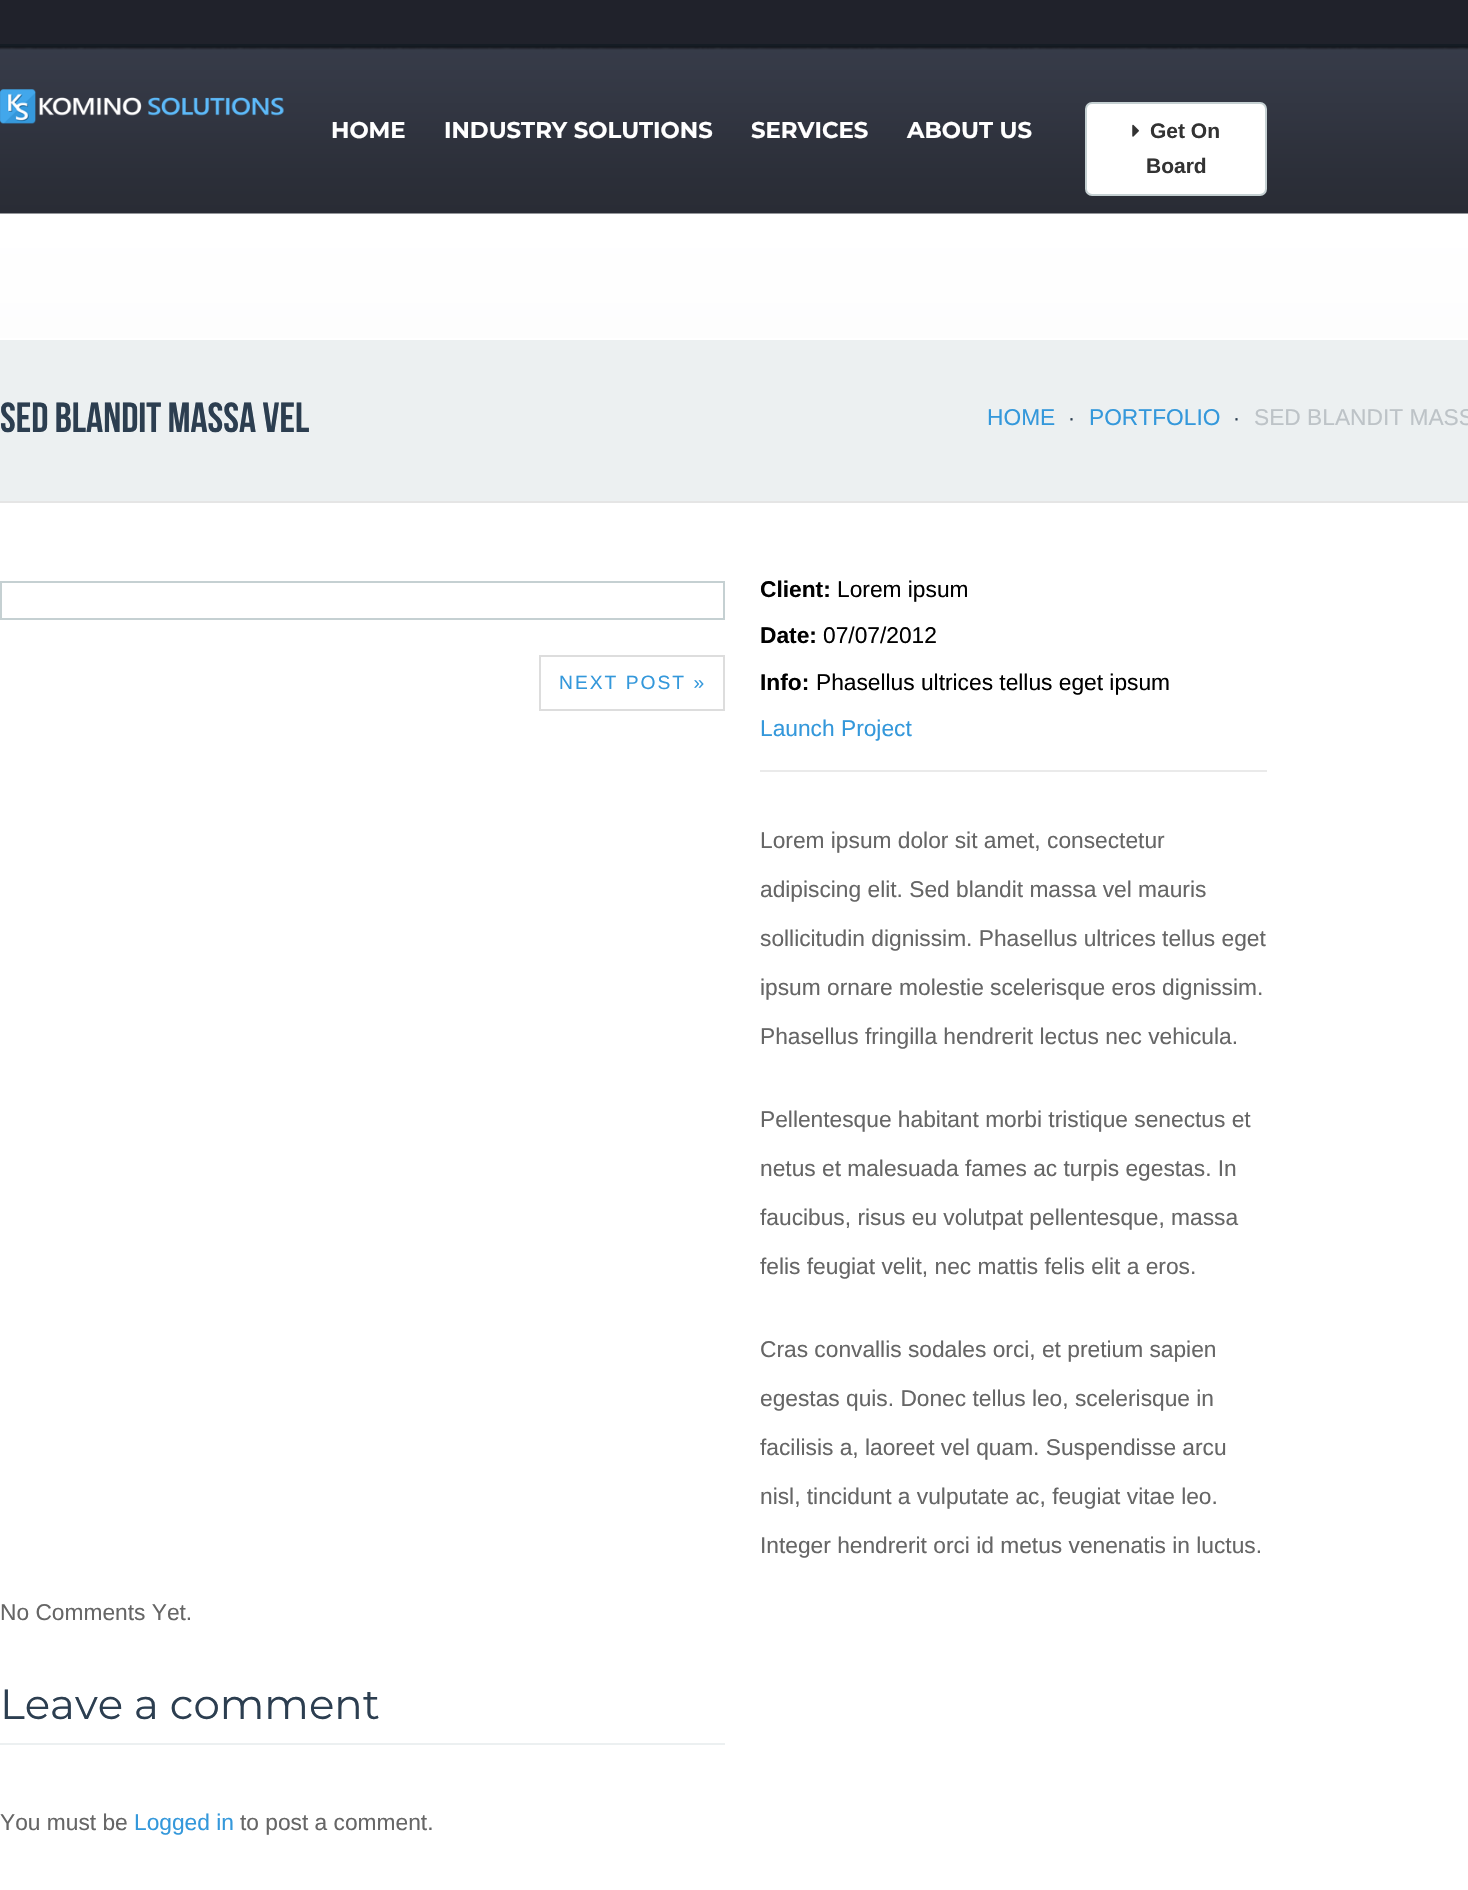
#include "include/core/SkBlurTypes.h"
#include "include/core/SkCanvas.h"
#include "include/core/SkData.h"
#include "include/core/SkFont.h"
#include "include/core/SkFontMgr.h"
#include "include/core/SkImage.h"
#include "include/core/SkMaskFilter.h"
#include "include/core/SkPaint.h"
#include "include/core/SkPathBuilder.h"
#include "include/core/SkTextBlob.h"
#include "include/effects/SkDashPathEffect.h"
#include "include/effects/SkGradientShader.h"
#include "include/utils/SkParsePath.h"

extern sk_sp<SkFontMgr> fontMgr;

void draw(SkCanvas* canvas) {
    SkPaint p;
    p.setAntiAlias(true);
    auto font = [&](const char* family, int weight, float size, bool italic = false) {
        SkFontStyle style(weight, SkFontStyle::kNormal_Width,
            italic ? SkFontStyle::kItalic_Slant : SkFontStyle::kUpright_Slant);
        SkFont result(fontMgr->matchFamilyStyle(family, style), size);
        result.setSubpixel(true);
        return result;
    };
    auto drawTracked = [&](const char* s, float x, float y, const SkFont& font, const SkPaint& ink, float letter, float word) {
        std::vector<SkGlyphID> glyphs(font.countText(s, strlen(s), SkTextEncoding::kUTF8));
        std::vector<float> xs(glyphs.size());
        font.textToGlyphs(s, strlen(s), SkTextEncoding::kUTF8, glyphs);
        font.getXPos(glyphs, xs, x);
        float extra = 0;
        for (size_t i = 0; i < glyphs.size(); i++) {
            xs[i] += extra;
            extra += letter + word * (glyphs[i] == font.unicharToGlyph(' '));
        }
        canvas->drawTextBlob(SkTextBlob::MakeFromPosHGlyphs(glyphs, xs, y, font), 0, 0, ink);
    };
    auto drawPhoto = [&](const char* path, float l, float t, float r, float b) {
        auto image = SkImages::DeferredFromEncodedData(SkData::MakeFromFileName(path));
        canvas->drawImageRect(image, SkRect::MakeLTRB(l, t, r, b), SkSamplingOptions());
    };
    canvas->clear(0xFFFFFFFF);
    p.setColor(0xFF20222B);
    canvas->drawRect(SkRect::MakeLTRB(0, 0, 1468, 44), p);
    p.setColor(0xFF151C24);
    canvas->drawRect(SkRect::MakeLTRB(0, 44, 1468, 46), p);
    drawPhoto("media/1.png", 0, 46, 1468, 338);
    p.setColor(0x26000000);
    canvas->drawRect(SkRect::MakeLTRB(0, 46, 1468, 48), p);
    drawPhoto("media/2.png", 0, 89, 284, 124);
    auto font1 = font("Montserrat", 700, 22.75f);
    p.setColor(0xFFFFFFFF);
    {
        const struct { const char* s; float x, y; } items[] = {
            {"HOME", 331, 138},
            {"INDUSTRY SOLUTIONS", 444, 138},
            {"SERVICES", 751, 138},
            {"ABOUT US", 907, 138},
        };
        for (auto [s, x, y] : items) {
            canvas->drawString(s, x, y, font1, p);
        }
    }
    canvas->drawRoundRect(SkRect::MakeLTRB(1086, 103, 1266, 195), 6, 6, p);
    p.setStyle(SkPaint::kStroke_Style);
    p.setStrokeWidth(2);
    p.setColor(0xFFC5D0D2);
    canvas->drawRoundRect(SkRect::MakeLTRB(1086, 103, 1266, 195), 6, 6, p);
    drawPhoto("media/3.png", 1132, 124, 1139, 137);
    auto font2 = font("Liberation Sans", 700, 21);
    p.setStyle(SkPaint::kFill_Style);
    p.setColor(0xFF333333);
    canvas->drawString("Get On", 1150, 138, font2, p);
    canvas->drawString("Board", 1146, 173, font2, p);
    p.setColor(0xFFECF0F1);
    canvas->drawRect(SkRect::MakeLTRB(0, 340, 1468, 501), p);
    p.setColor(0xFFE5E5E5);
    canvas->drawRect(SkRect::MakeLTRB(0, 501, 1468, 503), p);
    auto font3 = font("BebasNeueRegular", 400, 42);
    p.setColor(0xFF2C3E50);
    canvas->drawString("SED BLANDIT MASSA VEL", 0, 432, font3, p);
    auto font4 = font("Liberation Sans", 400, 22.75f);
    p.setColor(0xFF3498DB);
    canvas->drawString("HOME", 987, 425, font4, p);
    auto font5 = font("Liberation Sans", 400, 21);
    p.setColor(0xFF2C3E50);
    canvas->drawString("·", 1068, 425, font5, p);
    p.setColor(0xFF3498DB);
    canvas->drawString("PORTFOLIO", 1089, 425, font4, p);
    p.setColor(0xFF2C3E50);
    canvas->drawString("·", 1233, 425, font5, p);
    p.setColor(0xFFBDC3C7);
    canvas->drawString("SED BLANDIT MASS", 1254, 425, font4, p);
    p.setStyle(SkPaint::kStroke_Style);
    p.setColor(0xFFC5D0D2);
    canvas->drawRect(SkRect::MakeLTRB(1, 582, 724, 619), p);
    p.setColor(0xFFDDDDDD);
    canvas->drawRect(SkRect::MakeLTRB(540, 656, 724, 710), p);
    auto font6 = font("Liberation Sans", 400, 19.25f);
    p.setStyle(SkPaint::kFill_Style);
    p.setColor(0xFF3498DB);
    drawTracked("NEXT POST »", 559, 689, font6, p, 2, 0);
    p.setColor(0xFFEAEAEA);
    canvas->drawRect(SkRect::MakeLTRB(760, 770, 1267, 772), p);
    auto font7 = font("Liberation Sans", 700, 22.75f);
    p.setColor(0xFF000000);
    canvas->drawString("Client:", 760, 597, font7, p);
    canvas->drawString("Lorem ipsum", 837, 597, font4, p);
    canvas->drawString("Date:", 760, 643, font7, p);
    canvas->drawString("07/07/2012", 823, 643, font4, p);
    canvas->drawString("Info:", 760, 690, font7, p);
    canvas->drawString("Phasellus ultrices tellus eget ipsum", 816, 690, font4, p);
    p.setColor(0xFF3498DB);
    canvas->drawString("Launch Project", 760, 736, font4, p);
    p.setColor(0xFF666666);
    {
        const struct { const char* s; float x, y; } items[] = {
            {"Lorem ipsum dolor sit amet, consectetur", 760, 848},
            {"adipiscing elit. Sed blandit massa vel mauris", 760, 897},
            {"sollicitudin dignissim. Phasellus ultrices tellus eget", 760, 946},
            {"ipsum ornare molestie scelerisque eros dignissim.", 760, 995},
            {"Phasellus fringilla hendrerit lectus nec vehicula.", 760, 1044},
            {"Pellentesque habitant morbi tristique senectus et", 760, 1127},
            {"netus et malesuada fames ac turpis egestas. In", 760, 1176},
            {"faucibus, risus eu volutpat pellentesque, massa", 760, 1225},
            {"felis feugiat velit, nec mattis felis elit a eros.", 760, 1274},
            {"Cras convallis sodales orci, et pretium sapien", 760, 1357},
            {"egestas quis. Donec tellus leo, scelerisque in", 760, 1406},
            {"facilisis a, laoreet vel quam. Suspendisse arcu", 760, 1455},
            {"nisl, tincidunt a vulputate ac, feugiat vitae leo.", 760, 1504},
            {"Integer hendrerit orci id metus venenatis in luctus.", 760, 1553},
            {"No Comments Yet.", 0, 1620},
        };
        for (auto [s, x, y] : items) {
            canvas->drawString(s, x, y, font4, p);
        }
    }
    p.setColor(0xFFECF0F1);
    canvas->drawRect(SkRect::MakeLTRB(0, 1743, 725, 1745), p);
    auto font8 = font("Montserrat", 400, 42);
    p.setColor(0xFF2C3E50);
    canvas->drawString("Leave a comment", 0, 1719, font8, p);
    p.setColor(0xFF666666);
    canvas->drawString("You must be", 0, 1830, font4, p);
    p.setColor(0xFF3498DB);
    canvas->drawString("Logged in", 134, 1830, font4, p);
    p.setColor(0xFF666666);
    canvas->drawString("to post a comment.", 240, 1830, font4, p);
}
